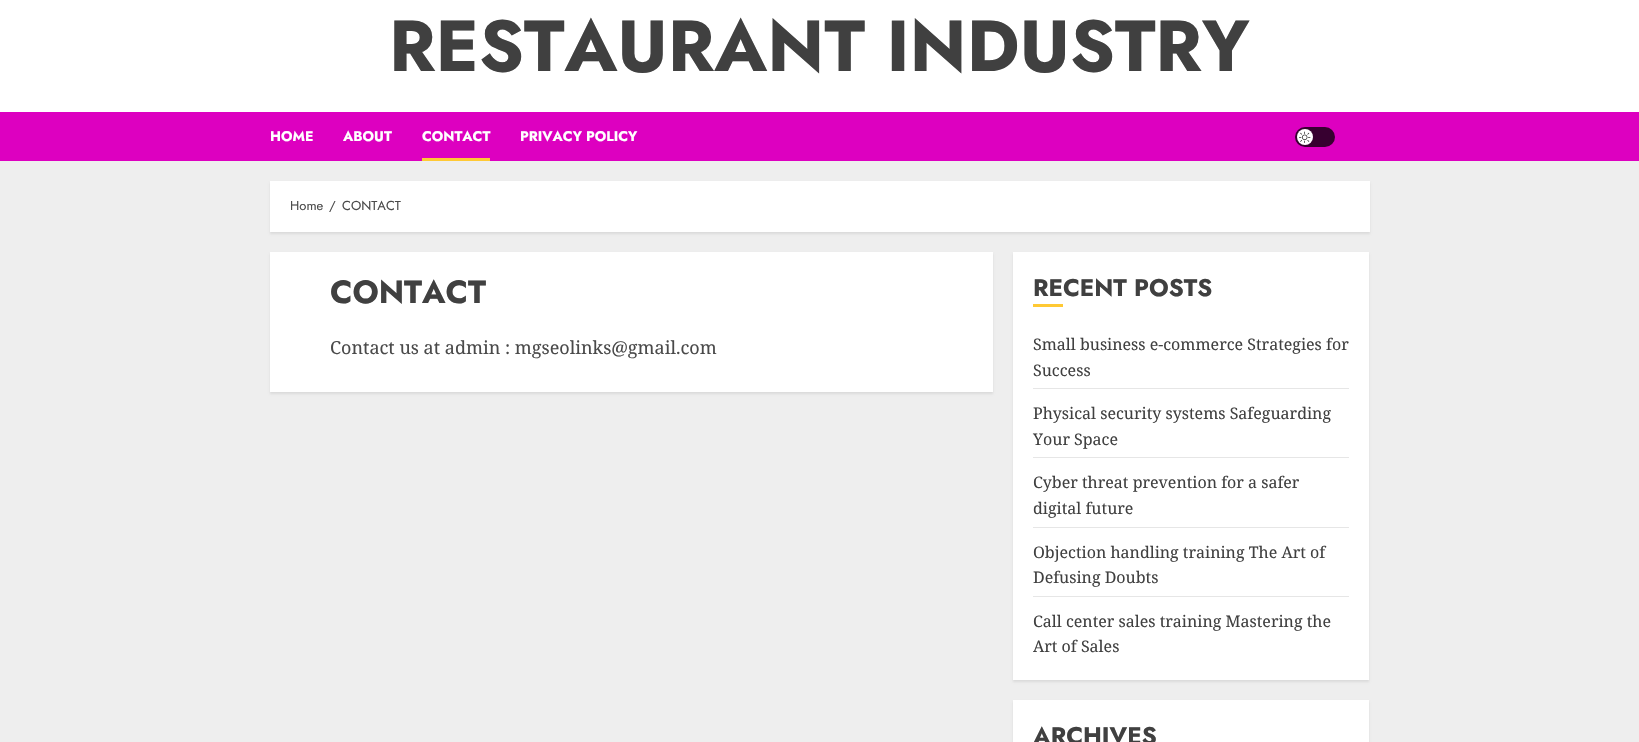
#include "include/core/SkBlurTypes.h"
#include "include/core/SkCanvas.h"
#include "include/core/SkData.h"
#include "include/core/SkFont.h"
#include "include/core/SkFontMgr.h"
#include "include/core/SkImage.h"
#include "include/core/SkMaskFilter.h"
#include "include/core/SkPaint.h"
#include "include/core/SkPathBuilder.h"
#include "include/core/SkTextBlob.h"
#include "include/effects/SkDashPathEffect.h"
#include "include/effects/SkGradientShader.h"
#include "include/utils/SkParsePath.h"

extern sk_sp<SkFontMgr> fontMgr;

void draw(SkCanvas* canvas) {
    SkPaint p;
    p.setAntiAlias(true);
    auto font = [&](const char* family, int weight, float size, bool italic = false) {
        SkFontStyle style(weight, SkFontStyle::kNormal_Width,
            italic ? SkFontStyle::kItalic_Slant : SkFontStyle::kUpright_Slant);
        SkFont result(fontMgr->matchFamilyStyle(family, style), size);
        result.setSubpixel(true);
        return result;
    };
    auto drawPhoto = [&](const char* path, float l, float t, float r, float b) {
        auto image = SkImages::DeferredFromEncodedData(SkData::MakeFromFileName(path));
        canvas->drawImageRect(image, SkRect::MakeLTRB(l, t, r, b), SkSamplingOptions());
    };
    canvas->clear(0xFFEEEEEE);
    p.setColor(0xFFFFFFFF);
    canvas->drawRect(SkRect::MakeLTRB(0, 0, 1639, 112), p);
    auto font1 = font("Jost", 700, 72);
    p.setColor(0xFF404040);
    canvas->drawString("RESTAURANT INDUSTRY", 389, 71, font1, p);
    p.setColor(0xFFDD00C0);
    canvas->drawRect(SkRect::MakeLTRB(0, 112, 1639, 161), p);
    auto font2 = font("Jost", 700, 14);
    p.setColor(0xFFFFFFFF);
    {
        const struct { const char* s; float x, y; } items[] = {
            {"HOME", 270, 141},
            {"ABOUT", 343, 141},
            {"CONTACT", 422, 141},
        };
        for (auto [s, x, y] : items) {
            canvas->drawString(s, x, y, font2, p);
        }
    }
    p.setColor(0xFFFFC934);
    canvas->drawRect(SkRect::MakeLTRB(422, 158, 490, 161), p);
    p.setColor(0xFFFFFFFF);
    canvas->drawString("PRIVACY POLICY", 520, 141, font2, p);
    p.setColor(0xFF370030);
    canvas->drawRoundRect(SkRect::MakeLTRB(1295, 127, 1335, 147), 10, 10, p);
    p.setColor(0xFFFFFFFF);
    canvas->drawCircle(1305, 137, 8, p);
    drawPhoto("media/1.png", 1299, 131, 1311, 143);
    p.setColor(0x14000000);
    p.setMaskFilter(SkMaskFilter::MakeBlur(kNormal_SkBlurStyle, 1));
    canvas->drawRect(SkRect::MakeLTRB(270, 183, 1370, 234), p);
    p.setMaskFilter(nullptr);
    p.setColor(0xFFFFFFFF);
    canvas->drawRect(SkRect::MakeLTRB(270, 181, 1370, 232), p);
    auto font3 = font("Jost", 400, 13);
    p.setColor(0xFF4A4A4A);
    {
        const struct { const char* s; float x, y; } items[] = {
            {"Home", 290, 210},
            {"/", 329, 210},
            {"CONTACT", 342, 210},
        };
        for (auto [s, x, y] : items) {
            canvas->drawString(s, x, y, font3, p);
        }
    }
    p.setColor(0x14000000);
    p.setMaskFilter(SkMaskFilter::MakeBlur(kNormal_SkBlurStyle, 1));
    canvas->drawRect(SkRect::MakeLTRB(270, 254, 993, 394), p);
    p.setMaskFilter(nullptr);
    p.setColor(0xFFFFFFFF);
    canvas->drawRect(SkRect::MakeLTRB(270, 252, 993, 392), p);
    auto font4 = font("Jost", 700, 32);
    p.setColor(0xFF404040);
    canvas->drawString("CONTACT", 330, 303, font4, p);
    auto font5 = font("Noto Serif", 400, 18);
    p.setColor(0xFF4A4A4A);
    canvas->drawString("Contact us at admin : mgseolinks@gmail.com", 330, 354, font5, p);
    p.setColor(0x14000000);
    p.setMaskFilter(SkMaskFilter::MakeBlur(kNormal_SkBlurStyle, 1));
    canvas->drawRect(SkRect::MakeLTRB(1013, 254, 1369, 682), p);
    p.setMaskFilter(nullptr);
    p.setColor(0xFFFFFFFF);
    canvas->drawRect(SkRect::MakeLTRB(1013, 252, 1369, 680), p);
    auto font6 = font("Jost", 700, 24);
    p.setColor(0xFF404040);
    canvas->drawString("RECENT POSTS", 1033, 296, font6, p);
    p.setColor(0xFFFFC934);
    canvas->drawRect(SkRect::MakeLTRB(1033, 304, 1063, 307), p);
    p.setColor(0xFFE6E6E6);
    canvas->drawRect(SkRect::MakeLTRB(1033, 388, 1349, 389), p);
    auto font7 = font("Noto Serif", 400, 16);
    p.setColor(0xFF404040);
    canvas->drawString("Small business e-commerce Strategies for", 1033, 350, font7, p);
    canvas->drawString("Success", 1033, 376, font7, p);
    p.setColor(0xFFE6E6E6);
    canvas->drawRect(SkRect::MakeLTRB(1033, 457, 1349, 458), p);
    p.setColor(0xFF404040);
    canvas->drawString("Physical security systems Safeguarding", 1033, 419, font7, p);
    canvas->drawString("Your Space", 1033, 445, font7, p);
    p.setColor(0xFFE6E6E6);
    canvas->drawRect(SkRect::MakeLTRB(1033, 527, 1349, 528), p);
    p.setColor(0xFF404040);
    canvas->drawString("Cyber threat prevention for a safer", 1033, 488, font7, p);
    canvas->drawString("digital future", 1033, 514, font7, p);
    p.setColor(0xFFE6E6E6);
    canvas->drawRect(SkRect::MakeLTRB(1033, 596, 1349, 597), p);
    p.setColor(0xFF404040);
    {
        const struct { const char* s; float x, y; } items[] = {
            {"Objection handling training The Art of", 1033, 558},
            {"Defusing Doubts", 1033, 583},
            {"Call center sales training Mastering the", 1033, 627},
            {"Art of Sales", 1033, 652},
        };
        for (auto [s, x, y] : items) {
            canvas->drawString(s, x, y, font7, p);
        }
    }
    p.setColor(0x14000000);
    p.setMaskFilter(SkMaskFilter::MakeBlur(kNormal_SkBlurStyle, 1));
    canvas->drawRect(SkRect::MakeLTRB(1013, 702, 1369, 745), p);
    p.setMaskFilter(nullptr);
    p.setColor(0xFFFFFFFF);
    canvas->drawRect(SkRect::MakeLTRB(1013, 700, 1369, 742), p);
    p.setColor(0xFF404040);
    canvas->drawString("ARCHIVES", 1033, 744, font6, p);
}
